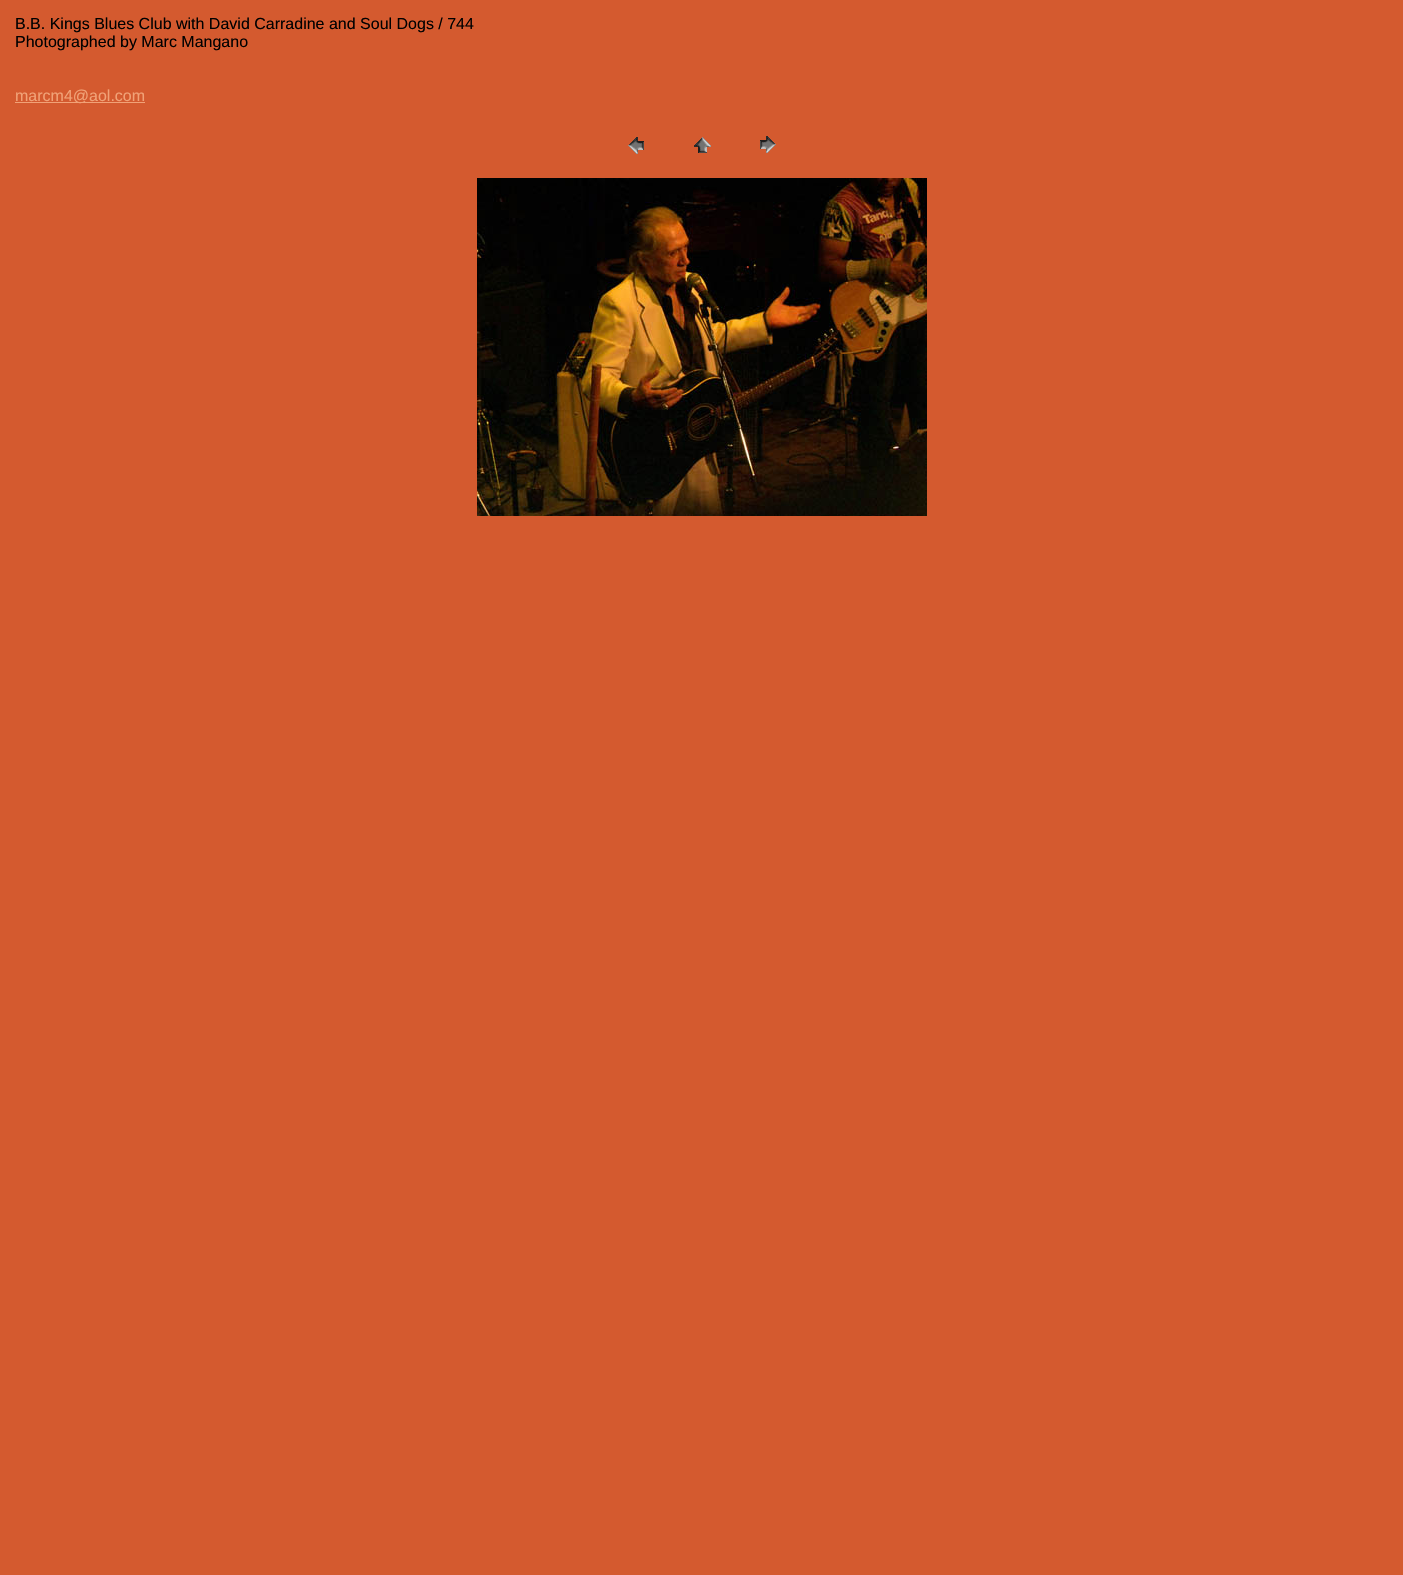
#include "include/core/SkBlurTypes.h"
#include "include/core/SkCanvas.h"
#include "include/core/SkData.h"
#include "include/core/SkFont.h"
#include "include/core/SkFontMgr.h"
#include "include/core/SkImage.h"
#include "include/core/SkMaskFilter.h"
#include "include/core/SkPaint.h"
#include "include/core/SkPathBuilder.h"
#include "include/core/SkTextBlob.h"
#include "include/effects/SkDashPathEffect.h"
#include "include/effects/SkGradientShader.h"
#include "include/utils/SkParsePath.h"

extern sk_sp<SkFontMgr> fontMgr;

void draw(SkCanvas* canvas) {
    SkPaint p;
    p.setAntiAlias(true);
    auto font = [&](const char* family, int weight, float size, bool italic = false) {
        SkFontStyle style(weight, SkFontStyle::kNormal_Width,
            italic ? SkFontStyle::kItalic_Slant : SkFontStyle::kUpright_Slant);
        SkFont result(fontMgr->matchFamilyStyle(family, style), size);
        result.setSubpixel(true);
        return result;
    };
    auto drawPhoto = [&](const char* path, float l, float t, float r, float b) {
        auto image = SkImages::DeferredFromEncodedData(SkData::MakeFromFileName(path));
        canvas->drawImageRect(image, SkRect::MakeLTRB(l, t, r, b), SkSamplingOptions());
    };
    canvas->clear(0xFFD45A2F);
    auto font1 = font("Liberation Sans", 400, 16);
    p.setColor(0xFF000000);
    canvas->drawString("B.B. Kings Blues Club with David Carradine and Soul Dogs / 744", 15, 29, font1, p);
    canvas->drawString("Photographed by Marc Mangano", 15, 47, font1, p);
    p.setColor(0xFFF1A277);
    canvas->drawRect(SkRect::MakeLTRB(15, 102, 145, 103), p);
    canvas->drawString("marcm4@aol.com", 15, 101, font1, p);
    drawPhoto("media/1.png", 628, 137, 644, 154);
    drawPhoto("media/2.png", 694, 137, 711, 153);
    drawPhoto("media/3.png", 760, 136, 776, 153);
    drawPhoto("media/4.png", 477, 178, 927, 516);
}
